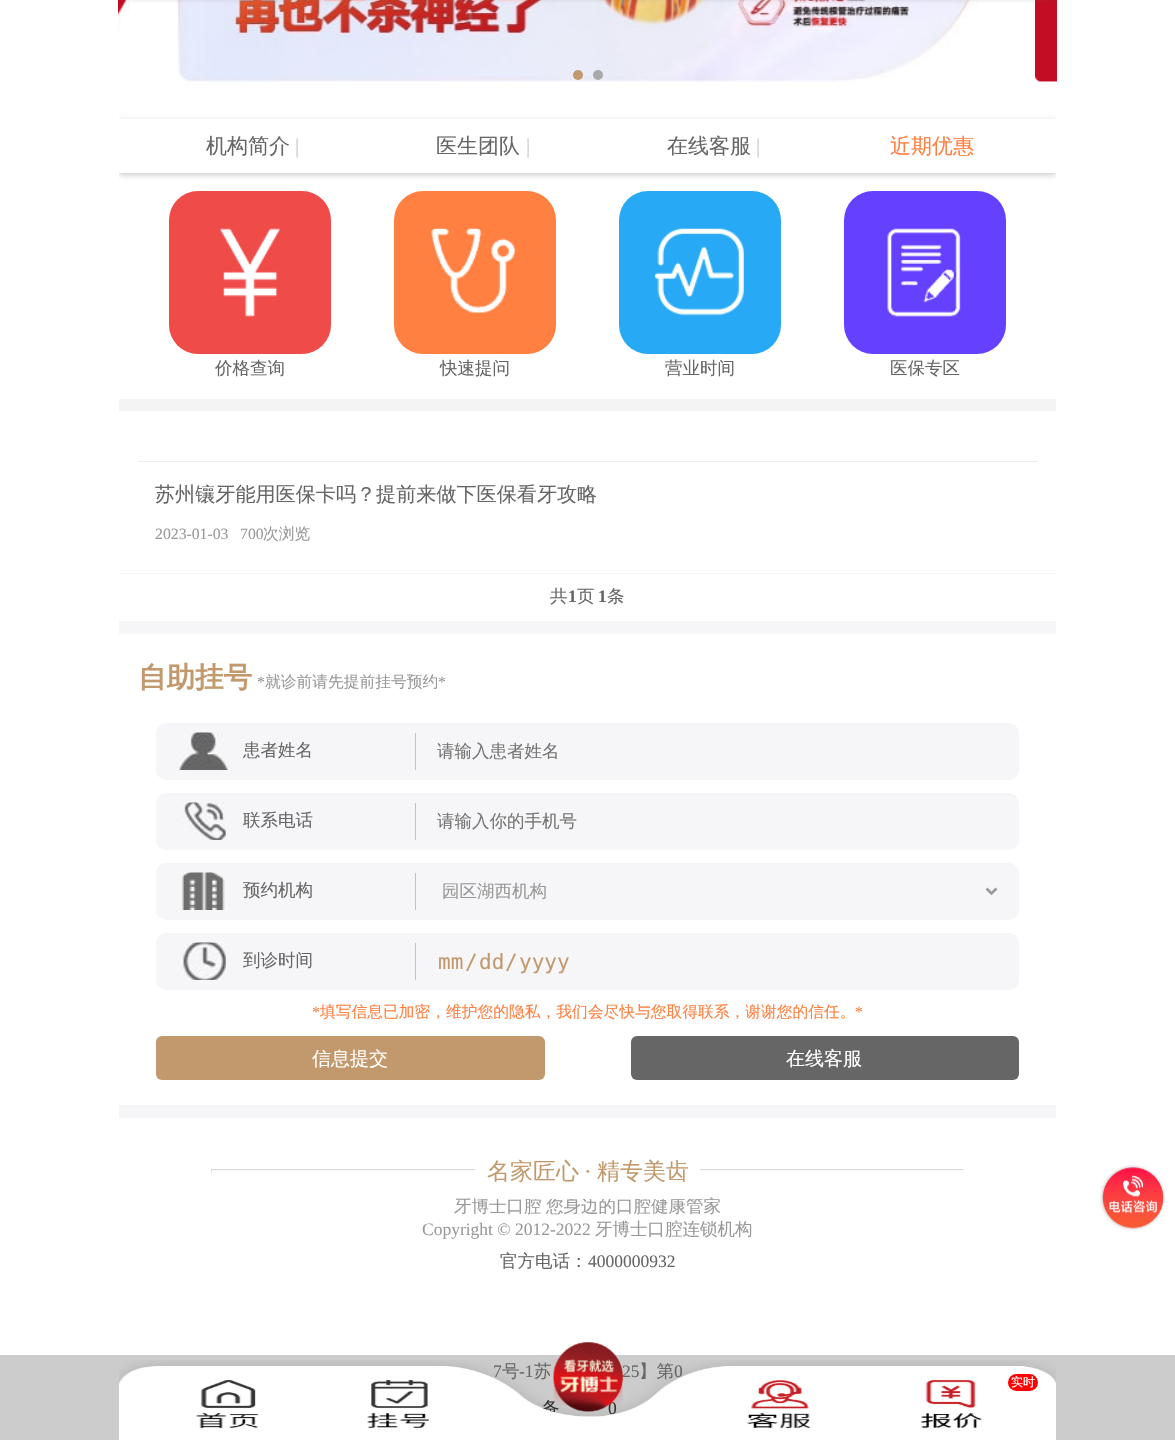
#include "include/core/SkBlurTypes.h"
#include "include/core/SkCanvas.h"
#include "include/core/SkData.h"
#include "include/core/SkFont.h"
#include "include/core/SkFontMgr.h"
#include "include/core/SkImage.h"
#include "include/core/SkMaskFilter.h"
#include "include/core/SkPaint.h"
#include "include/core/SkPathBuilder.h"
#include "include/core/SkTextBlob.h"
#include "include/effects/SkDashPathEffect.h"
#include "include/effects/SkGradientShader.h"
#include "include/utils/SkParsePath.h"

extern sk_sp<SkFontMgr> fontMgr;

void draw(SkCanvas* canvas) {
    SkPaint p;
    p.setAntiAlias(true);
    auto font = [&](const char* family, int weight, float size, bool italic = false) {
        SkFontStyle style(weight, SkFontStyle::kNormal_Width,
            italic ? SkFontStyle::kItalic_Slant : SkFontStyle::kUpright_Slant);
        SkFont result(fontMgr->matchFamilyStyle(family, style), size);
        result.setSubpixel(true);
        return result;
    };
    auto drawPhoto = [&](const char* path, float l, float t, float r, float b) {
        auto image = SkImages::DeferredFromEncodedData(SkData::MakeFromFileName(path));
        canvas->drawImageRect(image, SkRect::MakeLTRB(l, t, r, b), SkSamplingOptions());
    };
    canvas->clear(0xFFFFFFFF);
    drawPhoto("media/1.png", 118, 0, 130, 30);
    drawPhoto("media/2.png", 177, 0, 978, 86);
    drawPhoto("media/3.png", 1035, 0, 1057, 82);
    p.setColor(0xFF666666);
    p.setMaskFilter(SkMaskFilter::MakeBlur(kNormal_SkBlurStyle, 5));
    canvas->drawRoundRect(SkRect::MakeLTRB(119, -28, 1056, -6), 13, 13, p);
    p.setMaskFilter(nullptr);
    p.setColor(0xFFC2996D);
    canvas->drawCircle(578, 75, 5, p);
    p.setColor(0xFFA9A9A9);
    canvas->drawCircle(598, 75, 5, p);
    canvas->save();
    canvas->clipRect(SkRect::MakeLTRB(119, 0, 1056, 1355));
    p.setColor(0xFFCCCCCC);
    p.setMaskFilter(SkMaskFilter::MakeBlur(kNormal_SkBlurStyle, 3));
    canvas->drawRect(SkRect::MakeLTRB(119, 121, 1056, 175), p);
    p.setMaskFilter(nullptr);
    canvas->restore();
    p.setColor(0xFFFFFFFF);
    canvas->drawRect(SkRect::MakeLTRB(119, 119, 1056, 173), p);
    auto font1 = font("WenQuanYi Zen Hei", 500, 21);
    p.setColor(0xFF666666);
    canvas->drawString("机构简介", 206, 153, font1, p);
    auto font2 = font("Liberation Serif", 400, 21);
    p.setColor(0xFFCCCCCC);
    canvas->drawString("|", 295, 153, font2, p);
    p.setColor(0xFF666666);
    canvas->drawString("医生团队", 436, 153, font1, p);
    p.setColor(0xFFCCCCCC);
    canvas->drawString("|", 526, 153, font2, p);
    p.setColor(0xFF666666);
    canvas->drawString("在线客服", 667, 153, font1, p);
    p.setColor(0xFFCCCCCC);
    canvas->drawString("|", 756, 153, font2, p);
    p.setColor(0xFFFF8040);
    canvas->drawString("近期优惠", 890, 153, font1, p);
    p.setColor(0xFFEF4B49);
    canvas->drawRoundRect(SkRect::MakeLTRB(169, 191, 331, 354), 29, 29, p);
    drawPhoto("media/4.png", 219, 228, 281, 317);
    auto font3 = font("WenQuanYi Zen Hei", 500, 17.5f);
    p.setColor(0xFF666666);
    canvas->drawString("价格查询", 215, 374, font3, p);
    p.setColor(0xFFFF8041);
    canvas->drawRoundRect(SkRect::MakeLTRB(394, 191, 556, 354), 29, 29, p);
    drawPhoto("media/5.png", 431, 228, 516, 313);
    p.setColor(0xFF666666);
    canvas->drawString("快速提问", 440, 374, font3, p);
    p.setColor(0xFF27A9F5);
    canvas->drawRoundRect(SkRect::MakeLTRB(619, 191, 781, 354), 29, 29, p);
    drawPhoto("media/6.png", 654, 228, 744, 316);
    p.setColor(0xFF666666);
    canvas->drawString("营业时间", 665, 374, font3, p);
    p.setColor(0xFF6540FF);
    canvas->drawRoundRect(SkRect::MakeLTRB(844, 191, 1006, 354), 29, 29, p);
    drawPhoto("media/7.png", 887, 228, 961, 317);
    p.setColor(0xFF666666);
    canvas->drawString("医保专区", 890, 374, font3, p);
    p.setColor(0xFFF4F4F4);
    canvas->drawRect(SkRect::MakeLTRB(119, 399, 1056, 411), p);
    p.setColor(0xFFEEEEEE);
    canvas->drawRect(SkRect::MakeLTRB(138, 461, 1038, 462), p);
    auto font4 = font("WenQuanYi Zen Hei", 500, 20.1f);
    p.setColor(0xFF666666);
    canvas->drawString("苏州镶牙能用医保卡吗？提前来做下医保看牙攻略", 155, 501, font4, p);
    auto font5 = font("Liberation Serif", 400, 15.75f);
    p.setColor(0xFF999999);
    canvas->drawString("2023-01-03", 155, 539, font5, p);
    canvas->drawString("700", 240, 539, font5, p);
    auto font6 = font("WenQuanYi Zen Hei", 500, 15.75f);
    canvas->drawString("次浏览", 263, 539, font6, p);
    p.setColor(0xFFF4F4F4);
    canvas->drawRect(SkRect::MakeLTRB(119, 573, 1056, 574), p);
    p.setColor(0xFF666666);
    canvas->drawString("共", 550, 602, font3, p);
    auto font7 = font("Liberation Serif", 700, 17.5f);
    canvas->drawString("1", 568, 602, font7, p);
    canvas->drawString("页", 577, 602, font3, p);
    canvas->drawString("1", 598, 602, font7, p);
    canvas->drawString("条", 607, 602, font3, p);
    p.setColor(0xFFF6F6F8);
    canvas->drawRect(SkRect::MakeLTRB(119, 621, 1056, 634), p);
    canvas->drawRect(SkRect::MakeLTRB(119, 1105, 1056, 1118), p);
    auto font8 = font("WenQuanYi Zen Hei", 700, 28.5f);
    p.setColor(0xFFC2996D);
    canvas->drawString("自助挂号", 138, 687, font8, p);
    p.setColor(0xFF999999);
    canvas->drawString("*", 257, 687, font5, p);
    canvas->drawString("就诊前请先提前挂号预约", 265, 687, font6, p);
    canvas->drawString("*", 438, 687, font5, p);
    p.setColor(0xFFF6F6F8);
    canvas->drawRoundRect(SkRect::MakeLTRB(156, 723, 1019, 780), 10, 10, p);
    drawPhoto("media/8.png", 177, 732, 228, 770);
    p.setColor(0xFF666666);
    canvas->drawString("患者姓名", 243, 756, font3, p);
    p.setColor(0xFFC1C1C1);
    canvas->drawRect(SkRect::MakeLTRB(415, 733, 416, 770), p);
    p.setColor(0xFF757575);
    canvas->drawString("请输入患者姓名", 437, 757, font3, p);
    p.setColor(0xFFF6F6F8);
    canvas->drawRoundRect(SkRect::MakeLTRB(156, 793, 1019, 850), 10, 10, p);
    drawPhoto("media/9.png", 178, 802, 226, 840);
    p.setColor(0xFF666666);
    canvas->drawString("联系电话", 243, 826, font3, p);
    p.setColor(0xFFC1C1C1);
    canvas->drawRect(SkRect::MakeLTRB(415, 803, 416, 840), p);
    p.setColor(0xFF757575);
    canvas->drawString("请输入你的手机号", 437, 827, font3, p);
    p.setColor(0xFFF6F6F8);
    canvas->drawRoundRect(SkRect::MakeLTRB(156, 863, 1019, 920), 10, 10, p);
    drawPhoto("media/10.png", 181, 872, 225, 910);
    p.setColor(0xFF666666);
    canvas->drawString("预约机构", 243, 896, font3, p);
    p.setColor(0xFFC1C1C1);
    canvas->drawRect(SkRect::MakeLTRB(415, 873, 416, 910), p);
    p.setStyle(SkPaint::kStroke_Style);
    p.setStrokeWidth(2.5f);
    p.setColor(0xFF999999);
    canvas->drawPath(SkPathBuilder().moveTo(986.5f, 888.5f).lineTo(991.5f, 893.5f).lineTo(996.5f, 888.5f).detach(), p);
    p.setStyle(SkPaint::kFill_Style);
    canvas->drawString("园区湖西机构", 442, 897, font3, p);
    p.setColor(0xFFF6F6F8);
    canvas->drawRoundRect(SkRect::MakeLTRB(156, 933, 1019, 990), 10, 10, p);
    drawPhoto("media/11.png", 179, 942, 226, 980);
    p.setColor(0xFF666666);
    canvas->drawString("到诊时间", 243, 966, font3, p);
    p.setColor(0xFFC1C1C1);
    canvas->drawRect(SkRect::MakeLTRB(415, 943, 416, 980), p);
    auto font9 = font("DejaVu Sans Mono", 400, 21);
    p.setColor(0xFFC2996D);
    {
        const struct { const char* s; float x, y; } items[] = {
            {"mm", 438, 969},
            {"/", 465, 969},
            {"dd", 479, 969},
            {"/", 505, 969},
            {"yyyy", 519, 969},
        };
        for (auto [s, x, y] : items) {
            canvas->drawString(s, x, y, font9, p);
        }
    }
    p.setColor(0xFFFF8040);
    canvas->drawString("*", 312, 1017, font5, p);
    canvas->drawString("填写信息已加密，维护您的隐私，我们会尽快与您取得联系，谢谢您的信任。", 320, 1017, font6, p);
    canvas->drawString("*", 855, 1017, font5, p);
    p.setColor(0xFFC2996D);
    canvas->drawRoundRect(SkRect::MakeLTRB(156, 1036, 545, 1080), 6, 6, p);
    auto font10 = font("WenQuanYi Zen Hei", 500, 19);
    p.setColor(0xFFFFFFFF);
    canvas->drawString("信息提交", 312, 1065, font10, p);
    p.setColor(0xFF666666);
    canvas->drawRoundRect(SkRect::MakeLTRB(631, 1036, 1019, 1080), 6, 6, p);
    p.setColor(0xFFFFFFFF);
    canvas->drawString("在线客服", 786, 1065, font10, p);
    {
        const struct { float l, t, r, b; SkColor color; } items[] = {
            {211, 1169, 964, 1170, 0xFFD9D9D9},
            {963, 1169, 964, 1172, 0xFFF8F8F8},
            {211, 1170, 964, 1171, 0xFFF8F8F8},
        };
        for (auto [l, t, r, b, color] : items) {
            p.setColor(color);
            canvas->drawRect(SkRect::MakeLTRB(l, t, r, b), p);
        }
    }
    p.setColor(0xFF999999);
    canvas->drawString("牙博士口腔", 454, 1212, font3, p);
    canvas->drawString("您身边的口腔健康管家", 546, 1212, font3, p);
    p.setColor(0xFFFFFFFF);
    canvas->drawRect(SkRect::MakeLTRB(475, 1169, 700, 1199), p);
    auto font11 = font("WenQuanYi Zen Hei", 500, 23);
    p.setColor(0xFFC2996D);
    canvas->drawString("名家匠心", 487, 1179, font11, p);
    auto font12 = font("Liberation Serif", 400, 23);
    canvas->drawString("·", 584, 1179, font12, p);
    canvas->drawString("精专美齿", 597, 1179, font11, p);
    p.setColor(0xFFD9D9D9);
    canvas->drawRect(SkRect::MakeLTRB(211, 1169, 212, 1172), p);
    auto font13 = font("Liberation Serif", 400, 17.5f);
    p.setColor(0xFF999999);
    canvas->drawString("Copyright © 2012-2022", 422, 1235, font13, p);
    canvas->drawString("牙博士口腔连锁机构", 595, 1235, font3, p);
    p.setColor(0xFF666666);
    canvas->drawString("官方电话：", 500, 1267, font3, p);
    canvas->drawString("4000000932", 588, 1267, font13, p);
    p.setColor(0xFFCCCCCC);
    canvas->drawRect(SkRect::MakeLTRB(0, 1355, 1175, 1440), p);
    p.setColor(0xFF666666);
    canvas->drawString("7", 493, 1377, font13, p);
    canvas->drawString("号", 502, 1377, font3, p);
    canvas->drawString("-1", 519, 1377, font13, p);
    canvas->drawString("苏", 534, 1377, font3, p);
    canvas->drawString("25", 622, 1377, font13, p);
    canvas->drawString("】第", 639, 1377, font3, p);
    canvas->drawString("0", 674, 1377, font13, p);
    p.setColor(0xFF333333);
    canvas->drawString("备", 542, 1414, font3, p);
    canvas->drawString("0", 608, 1414, font13, p);
    drawPhoto("media/12.png", 119, 1360, 1056, 1440);
    drawPhoto("media/13.png", 553, 1342, 623, 1412);
    drawPhoto("media/14.png", 553, 1342, 623, 1412);
    p.setColor(0xFFFF0000);
    canvas->drawRoundRect(SkRect::MakeLTRB(1008, 1374, 1038, 1391), 8.5f, 8.5f, p);
    auto font14 = font("WenQuanYi Zen Hei", 500, 12);
    p.setColor(0xFFFFFFFF);
    canvas->drawString("实时", 1011, 1386, font14, p);
    drawPhoto("media/15.png", 1100, 1165, 1165, 1231);
}
